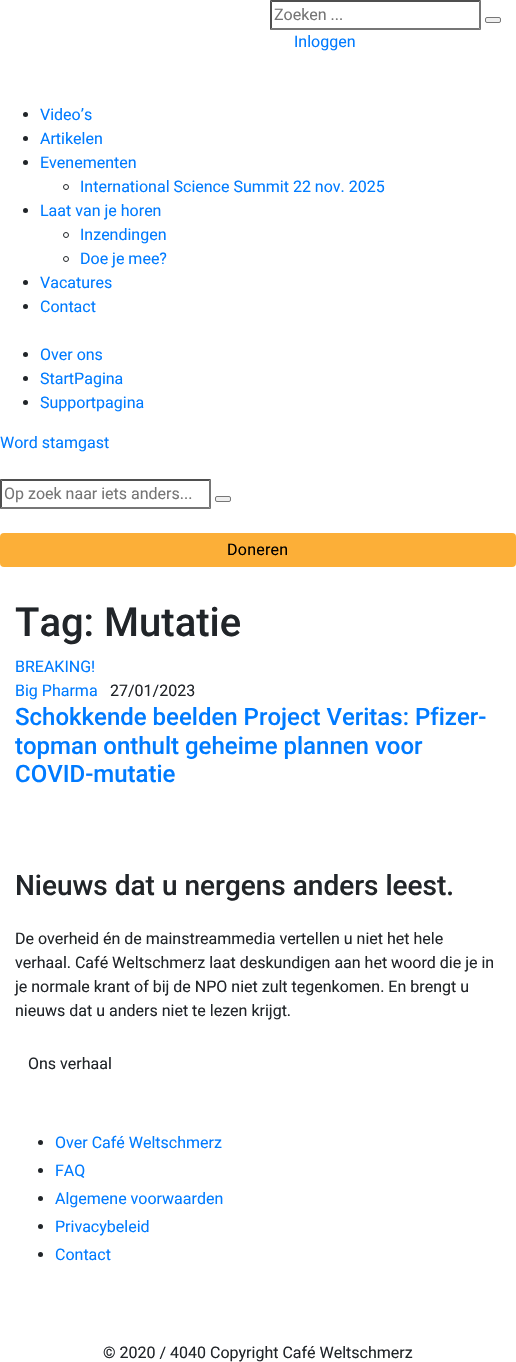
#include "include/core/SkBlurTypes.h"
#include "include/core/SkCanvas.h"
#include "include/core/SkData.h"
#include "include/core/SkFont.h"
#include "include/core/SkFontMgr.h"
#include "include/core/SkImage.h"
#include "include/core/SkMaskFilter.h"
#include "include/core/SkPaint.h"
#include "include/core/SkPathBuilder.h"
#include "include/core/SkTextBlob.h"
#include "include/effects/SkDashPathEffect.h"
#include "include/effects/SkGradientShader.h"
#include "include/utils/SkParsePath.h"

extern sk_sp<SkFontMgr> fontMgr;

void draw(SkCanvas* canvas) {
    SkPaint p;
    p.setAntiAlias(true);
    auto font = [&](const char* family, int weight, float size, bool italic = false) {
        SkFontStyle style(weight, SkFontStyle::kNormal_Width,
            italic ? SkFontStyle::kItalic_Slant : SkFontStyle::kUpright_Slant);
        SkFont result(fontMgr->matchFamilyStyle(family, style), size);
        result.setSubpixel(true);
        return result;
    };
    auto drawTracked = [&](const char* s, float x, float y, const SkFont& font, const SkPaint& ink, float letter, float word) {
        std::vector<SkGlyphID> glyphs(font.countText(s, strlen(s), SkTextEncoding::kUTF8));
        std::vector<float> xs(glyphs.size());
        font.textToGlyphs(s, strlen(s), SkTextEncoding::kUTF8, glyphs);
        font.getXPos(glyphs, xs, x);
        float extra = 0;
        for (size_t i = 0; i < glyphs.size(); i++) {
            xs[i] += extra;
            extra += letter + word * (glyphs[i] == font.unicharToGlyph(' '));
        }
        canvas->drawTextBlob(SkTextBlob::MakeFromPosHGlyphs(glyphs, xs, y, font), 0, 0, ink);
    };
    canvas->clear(0xFFFFFFFF);
    p.setColor(0xFF4F4F4F);
    canvas->drawPath(SkPathBuilder().moveTo(270, 0).lineTo(481, 0).lineTo(479, 2).lineTo(272, 2).close().detach(), p);
    p.setColor(0xFF767676);
    canvas->drawPath(SkPathBuilder().moveTo(481, 0).lineTo(481, 30).lineTo(479, 28).lineTo(479, 2).close().detach(), p);
    canvas->drawPath(SkPathBuilder().moveTo(481, 30).lineTo(270, 30).lineTo(272, 28).lineTo(479, 28).close().detach(), p);
    p.setColor(0xFF4F4F4F);
    canvas->drawPath(SkPathBuilder().moveTo(270, 30).lineTo(270, 0).lineTo(272, 2).lineTo(272, 28).close().detach(), p);
    auto font1 = font("Roboto", 400, 16);
    p.setColor(0xFF757575);
    canvas->drawString("Zoeken ...", 274, 20, font1, p);
    p.setColor(0xFFEFEFEF);
    canvas->drawRoundRect(SkRect::MakeLTRB(485.5f, 17.5f, 500.5f, 22.5f), 1.5f, 1.5f, p);
    p.setStyle(SkPaint::kStroke_Style);
    p.setStrokeWidth(1);
    p.setColor(0xFF767676);
    canvas->drawRoundRect(SkRect::MakeLTRB(485.5f, 17.5f, 500.5f, 22.5f), 1.5f, 1.5f, p);
    p.setStyle(SkPaint::kFill_Style);
    p.setColor(0xFF007BFF);
    canvas->drawString("Inloggen", 294, 47, font1, p);
    p.setColor(0xFF212529);
    canvas->drawCircle(25.5f, 114.5f, 2.5f, p);
    p.setColor(0xFF007BFF);
    canvas->drawString("Video’s", 40, 120, font1, p);
    p.setColor(0xFF212529);
    canvas->drawCircle(25.5f, 138.5f, 2.5f, p);
    p.setColor(0xFF007BFF);
    canvas->drawString("Artikelen", 40, 144, font1, p);
    p.setColor(0xFF212529);
    canvas->drawCircle(25.5f, 162.5f, 2.5f, p);
    p.setColor(0xFF007BFF);
    canvas->drawString("Evenementen", 40, 168, font1, p);
    p.setStyle(SkPaint::kStroke_Style);
    p.setColor(0xFF212529);
    canvas->drawCircle(66, 187, 2.5f, p);
    p.setStyle(SkPaint::kFill_Style);
    p.setColor(0xFF007BFF);
    canvas->drawString("International Science Summit 22 nov. 2025", 80, 192, font1, p);
    p.setColor(0xFF212529);
    canvas->drawCircle(25.5f, 210.5f, 2.5f, p);
    p.setColor(0xFF007BFF);
    canvas->drawString("Laat van je horen", 40, 216, font1, p);
    p.setStyle(SkPaint::kStroke_Style);
    p.setColor(0xFF212529);
    canvas->drawCircle(66, 235, 2.5f, p);
    p.setStyle(SkPaint::kFill_Style);
    p.setColor(0xFF007BFF);
    canvas->drawString("Inzendingen", 80, 240, font1, p);
    p.setStyle(SkPaint::kStroke_Style);
    p.setColor(0xFF212529);
    canvas->drawCircle(66, 259, 2.5f, p);
    p.setStyle(SkPaint::kFill_Style);
    p.setColor(0xFF007BFF);
    canvas->drawString("Doe je mee?", 80, 264, font1, p);
    p.setColor(0xFF212529);
    canvas->drawCircle(25.5f, 282.5f, 2.5f, p);
    p.setColor(0xFF007BFF);
    canvas->drawString("Vacatures", 40, 288, font1, p);
    p.setColor(0xFF212529);
    canvas->drawCircle(25.5f, 306.5f, 2.5f, p);
    p.setColor(0xFF007BFF);
    canvas->drawString("Contact", 40, 312, font1, p);
    p.setColor(0xFF212529);
    canvas->drawCircle(25.5f, 354.5f, 2.5f, p);
    p.setColor(0xFF007BFF);
    canvas->drawString("Over ons", 40, 360, font1, p);
    p.setColor(0xFF212529);
    canvas->drawCircle(25.5f, 378.5f, 2.5f, p);
    p.setColor(0xFF007BFF);
    canvas->drawString("StartPagina", 40, 384, font1, p);
    p.setColor(0xFF212529);
    canvas->drawCircle(25.5f, 402.5f, 2.5f, p);
    p.setColor(0xFF007BFF);
    canvas->drawString("Supportpagina", 40, 408, font1, p);
    canvas->drawString("Word stamgast", 0, 448, font1, p);
    p.setColor(0xFF4F4F4F);
    canvas->drawPath(SkPathBuilder().moveTo(0, 479).lineTo(211, 479).lineTo(209, 481).lineTo(2, 481).close().detach(), p);
    p.setColor(0xFF767676);
    canvas->drawPath(SkPathBuilder().moveTo(211, 479).lineTo(211, 509).lineTo(209, 507).lineTo(209, 481).close().detach(), p);
    canvas->drawPath(SkPathBuilder().moveTo(211, 509).lineTo(0, 509).lineTo(2, 507).lineTo(209, 507).close().detach(), p);
    p.setColor(0xFF4F4F4F);
    canvas->drawPath(SkPathBuilder().moveTo(0, 509).lineTo(0, 479).lineTo(2, 481).lineTo(2, 507).close().detach(), p);
    p.setColor(0xFF757575);
    canvas->drawString("Op zoek naar iets anders...", 4, 499, font1, p);
    p.setColor(0xFFEFEFEF);
    canvas->drawRoundRect(SkRect::MakeLTRB(215.5f, 496.5f, 230.5f, 501.5f), 1.5f, 1.5f, p);
    p.setStyle(SkPaint::kStroke_Style);
    p.setColor(0xFF767676);
    canvas->drawRoundRect(SkRect::MakeLTRB(215.5f, 496.5f, 230.5f, 501.5f), 1.5f, 1.5f, p);
    p.setStyle(SkPaint::kFill_Style);
    p.setColor(0xFFFCAF38);
    canvas->drawRoundRect(SkRect::MakeLTRB(0, 533, 516, 567), 4, 4, p);
    p.setColor(0xFF000000);
    drawTracked("Doneren", 227, 555, font1, p, 0.25f, 0);
    auto font2 = font("Roboto", 500, 40);
    p.setColor(0xFF212529);
    canvas->drawString("Tag: Mutatie", 15, 636, font2, p);
    p.setColor(0xFF007BFF);
    canvas->drawString("BREAKING!", 15, 672, font1, p);
    canvas->drawString("Big Pharma", 15, 696, font1, p);
    p.setColor(0xFF212529);
    canvas->drawString("27/01/2023", 110, 696, font1, p);
    auto font3 = font("Roboto", 500, 24);
    p.setColor(0xFF007BFF);
    {
        const struct { const char* s; float x, y; } items[] = {
            {"Schokkende beelden Project Veritas: Pfizer-", 15, 725},
            {"topman onthult geheime plannen voor", 15, 754},
            {"COVID-mutatie", 15, 782},
        };
        for (auto [s, x, y] : items) {
            canvas->drawString(s, x, y, font3, p);
        }
    }
    auto font4 = font("Roboto", 500, 28);
    p.setColor(0xFF212529);
    canvas->drawString("Nieuws dat u nergens anders leest.", 15, 895, font4, p);
    {
        const struct { const char* s; float x, y; } items[] = {
            {"De overheid én de mainstreammedia vertellen u niet het hele", 15, 944},
            {"verhaal. Café Weltschmerz laat deskundigen aan het woord die je in", 15, 968},
            {"je normale krant of bij de NPO niet zult tegenkomen. En brengt u", 15, 992},
            {"nieuws dat u anders niet te lezen krijgt.", 15, 1016},
            {"Ons verhaal", 28, 1069},
        };
        for (auto [s, x, y] : items) {
            canvas->drawString(s, x, y, font1, p);
        }
    }
    canvas->drawCircle(40.5f, 1142.5f, 2.5f, p);
    p.setColor(0xFF007BFF);
    canvas->drawString("Over Café Weltschmerz", 55, 1148, font1, p);
    p.setColor(0xFF212529);
    canvas->drawCircle(40.5f, 1170.5f, 2.5f, p);
    p.setColor(0xFF007BFF);
    canvas->drawString("FAQ", 55, 1176, font1, p);
    p.setColor(0xFF212529);
    canvas->drawCircle(40.5f, 1198.5f, 2.5f, p);
    p.setColor(0xFF007BFF);
    canvas->drawString("Algemene voorwaarden", 55, 1204, font1, p);
    p.setColor(0xFF212529);
    canvas->drawCircle(40.5f, 1226.5f, 2.5f, p);
    p.setColor(0xFF007BFF);
    canvas->drawString("Privacybeleid", 55, 1232, font1, p);
    p.setColor(0xFF212529);
    canvas->drawCircle(40.5f, 1254.5f, 2.5f, p);
    p.setColor(0xFF007BFF);
    canvas->drawString("Contact", 55, 1260, font1, p);
    p.setColor(0xFF212529);
    canvas->drawString("© 2020 / 4040 Copyright Café Weltschmerz", 103, 1358, font1, p);
}
